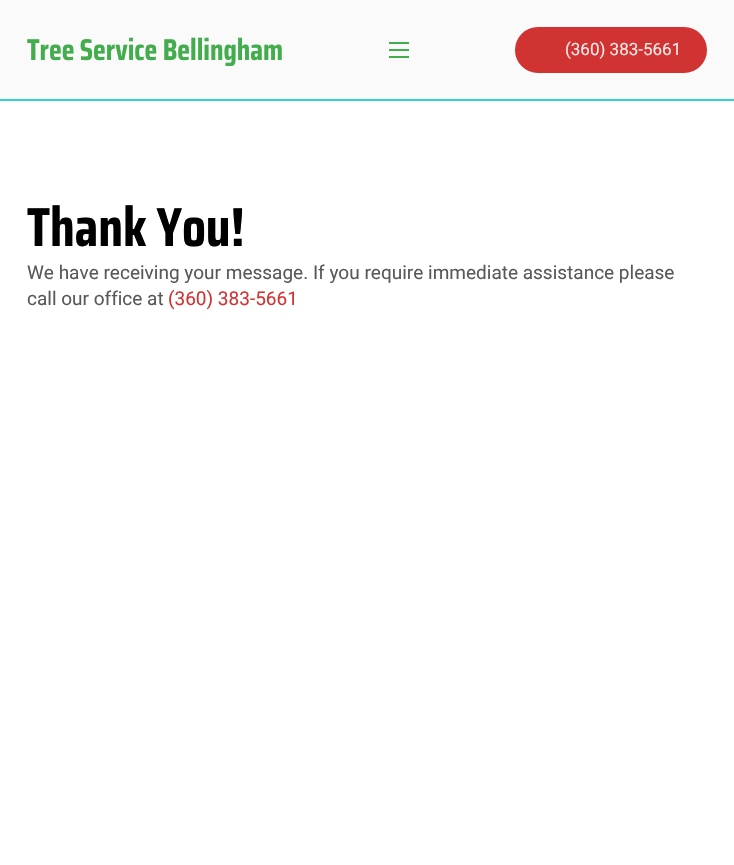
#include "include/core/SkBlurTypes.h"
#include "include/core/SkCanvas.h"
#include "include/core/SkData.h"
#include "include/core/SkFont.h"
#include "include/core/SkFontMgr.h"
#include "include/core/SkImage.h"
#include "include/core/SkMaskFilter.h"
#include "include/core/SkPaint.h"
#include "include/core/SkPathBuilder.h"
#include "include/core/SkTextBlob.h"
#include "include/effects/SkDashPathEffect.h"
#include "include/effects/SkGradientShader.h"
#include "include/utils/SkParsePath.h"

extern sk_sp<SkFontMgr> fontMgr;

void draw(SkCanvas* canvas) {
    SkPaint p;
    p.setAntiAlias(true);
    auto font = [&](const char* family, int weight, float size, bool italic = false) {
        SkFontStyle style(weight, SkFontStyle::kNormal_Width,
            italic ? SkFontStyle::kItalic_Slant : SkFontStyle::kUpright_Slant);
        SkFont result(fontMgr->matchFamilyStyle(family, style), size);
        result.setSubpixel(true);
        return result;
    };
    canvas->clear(0xFFFFFFFF);
    p.setColor(0xFFFAFAFA);
    canvas->drawRect(SkRect::MakeLTRB(0, 0, 734, 99), p);
    p.setColor(0xFF33D1D1);
    canvas->drawRect(SkRect::MakeLTRB(0, 99, 734, 101), p);
    auto font1 = font("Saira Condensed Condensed", 700, 30);
    p.setColor(0xFF43AD4D);
    canvas->drawString("Tree Service Bellingham", 27, 60, font1, p);
    {
        const struct { float l, t, r, b; SkColor color; } items[] = {
            {389, 42, 409, 44, 0xFF43AD4D},
            {389, 49, 409, 51, 0xFF43AD4D},
            {389, 56, 409, 58, 0xFF43AD4D},
        };
        for (auto [l, t, r, b, color] : items) {
            p.setColor(color);
            canvas->drawRect(SkRect::MakeLTRB(l, t, r, b), p);
        }
    }
    p.setColor(0xFFD13232);
    canvas->drawRoundRect(SkRect::MakeLTRB(516, 28, 706, 72), 22, 22, p);
    p.setStyle(SkPaint::kStroke_Style);
    p.setStrokeWidth(2);
    canvas->drawRoundRect(SkRect::MakeLTRB(516, 28, 706, 72), 22, 22, p);
    auto font2 = font("Roboto", 400, 17);
    p.setStyle(SkPaint::kFill_Style);
    p.setColor(0xFFFAEAEA);
    canvas->drawString("(360) 383-5661", 565, 55, font2, p);
    auto font3 = font("Saira Condensed Condensed", 700, 55);
    p.setColor(0xFF000000);
    canvas->drawString("Thank You!", 27, 246, font3, p);
    auto font4 = font("Roboto", 400, 19);
    p.setColor(0xFF595959);
    canvas->drawString("We have receiving your message. If you require immediate assistance please", 27, 279, font4, p);
    canvas->drawString("call our office at", 27, 305, font4, p);
    p.setColor(0xFFD13232);
    canvas->drawString("(360) 383-5661", 168, 305, font4, p);
}
